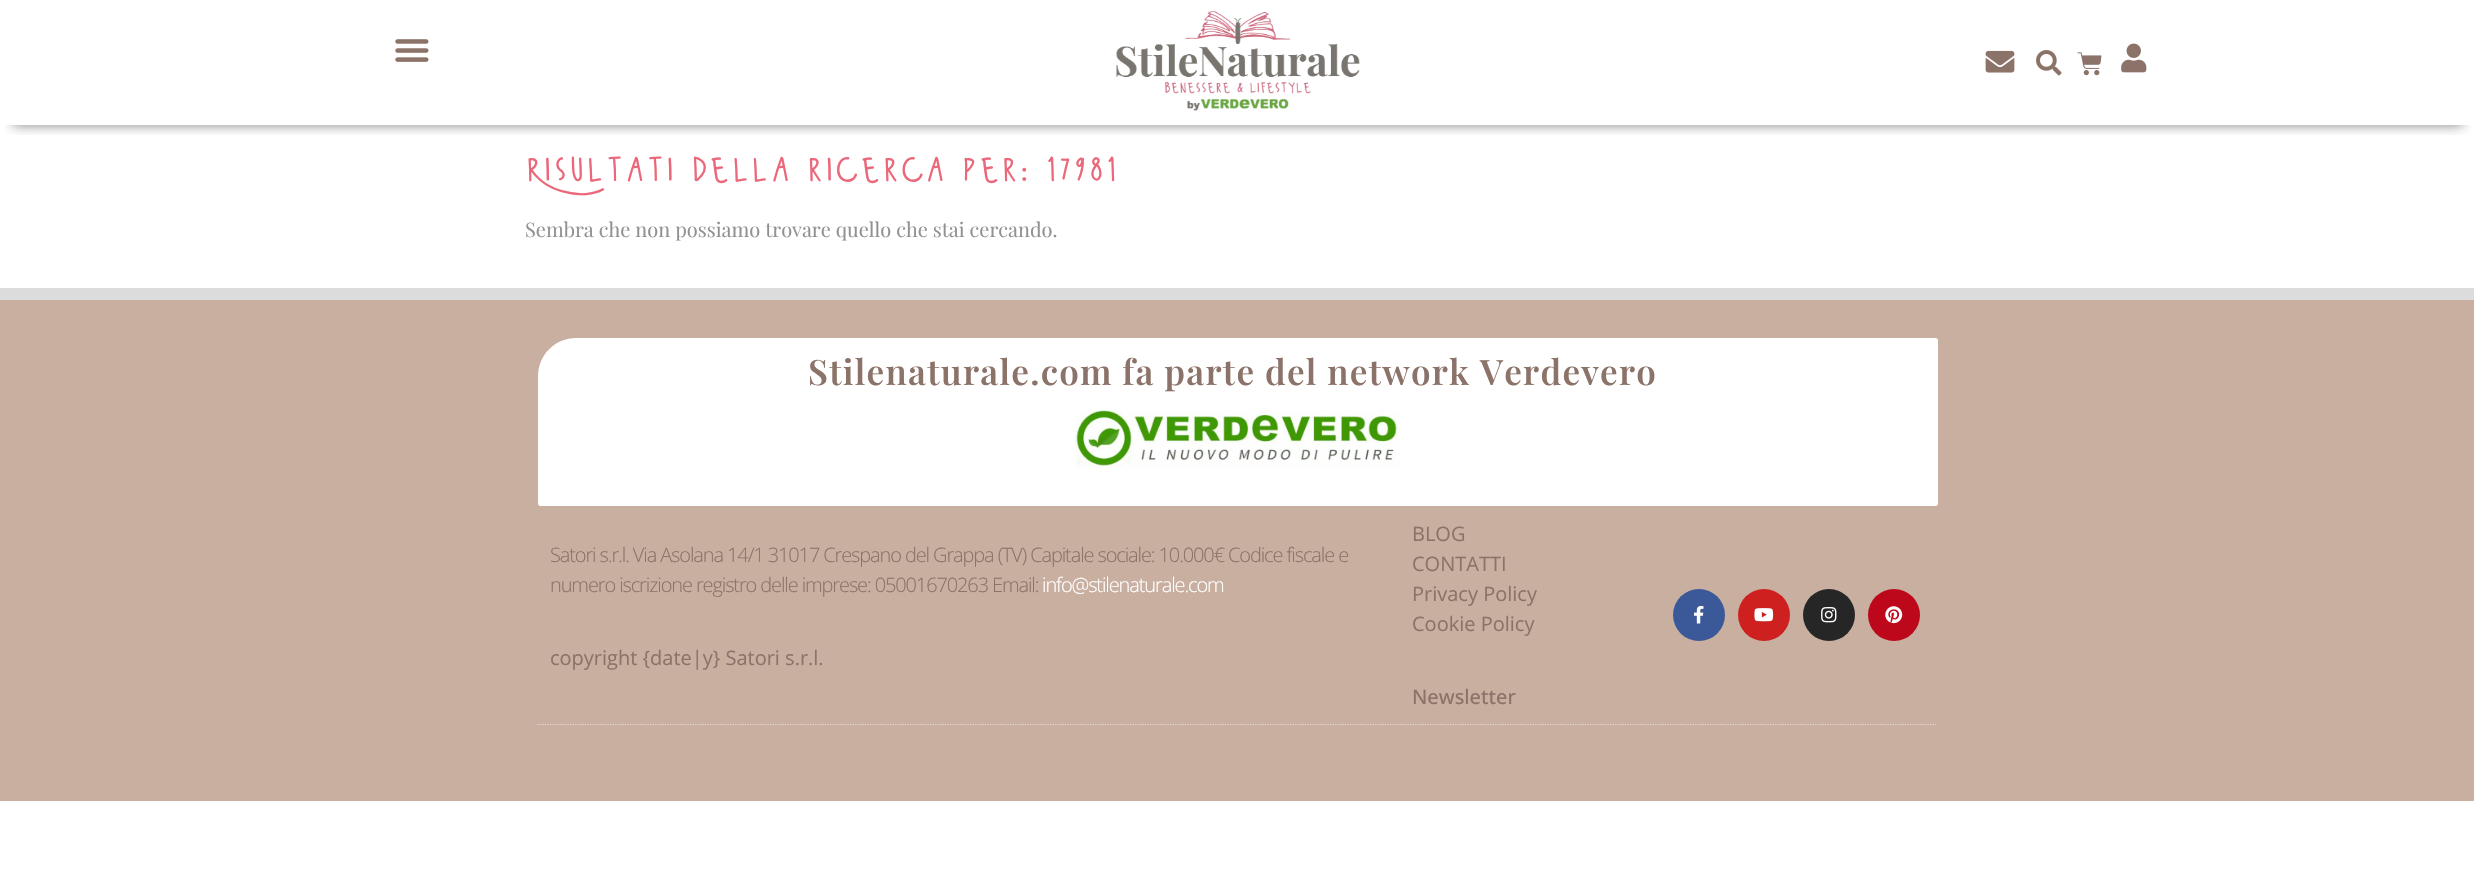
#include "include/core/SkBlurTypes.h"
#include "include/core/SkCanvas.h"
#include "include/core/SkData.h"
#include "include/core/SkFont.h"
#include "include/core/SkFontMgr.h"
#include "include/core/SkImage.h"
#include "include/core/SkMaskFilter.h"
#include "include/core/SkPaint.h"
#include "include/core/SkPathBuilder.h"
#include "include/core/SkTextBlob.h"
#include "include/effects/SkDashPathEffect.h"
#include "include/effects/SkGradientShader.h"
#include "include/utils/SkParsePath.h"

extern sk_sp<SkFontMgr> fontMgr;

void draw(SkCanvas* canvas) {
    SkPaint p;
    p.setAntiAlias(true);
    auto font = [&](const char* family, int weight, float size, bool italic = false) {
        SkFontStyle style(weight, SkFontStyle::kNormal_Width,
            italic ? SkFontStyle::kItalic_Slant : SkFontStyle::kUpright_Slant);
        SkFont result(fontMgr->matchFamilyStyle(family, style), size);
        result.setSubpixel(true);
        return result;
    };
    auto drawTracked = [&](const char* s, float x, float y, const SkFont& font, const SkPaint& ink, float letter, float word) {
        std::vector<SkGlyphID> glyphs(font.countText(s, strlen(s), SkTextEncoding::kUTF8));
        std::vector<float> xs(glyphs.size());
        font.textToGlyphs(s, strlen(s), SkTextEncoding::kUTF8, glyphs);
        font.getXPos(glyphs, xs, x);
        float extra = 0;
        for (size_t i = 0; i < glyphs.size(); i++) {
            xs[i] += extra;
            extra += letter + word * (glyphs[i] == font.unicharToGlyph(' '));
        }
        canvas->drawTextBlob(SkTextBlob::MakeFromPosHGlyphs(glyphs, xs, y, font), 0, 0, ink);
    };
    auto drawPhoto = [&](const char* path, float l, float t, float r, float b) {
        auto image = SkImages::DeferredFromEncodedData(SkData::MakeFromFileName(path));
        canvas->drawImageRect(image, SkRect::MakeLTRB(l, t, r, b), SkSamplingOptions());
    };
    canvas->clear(0xFFFFFFFF);
    canvas->save();
    canvas->clipRect(SkRect::MakeLTRB(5, 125, 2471, 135));
    p.setColor(0x80000000);
    p.setMaskFilter(SkMaskFilter::MakeBlur(kNormal_SkBlurStyle, 6));
    canvas->drawRect(SkRect::MakeLTRB(13, 25, 2463, 125), p);
    p.setMaskFilter(nullptr);
    canvas->restore();
    drawPhoto("media/1.png", 395, 39, 429, 62);
    drawPhoto("media/2.png", 1116, 11, 1360, 111);
    drawPhoto("media/3.png", 1985, 50, 2015, 73);
    drawPhoto("media/4.png", 2036, 50, 2062, 76);
    drawPhoto("media/5.png", 2077, 52, 2102, 76);
    drawPhoto("media/6.png", 2121, 43, 2147, 73);
    auto font1 = font("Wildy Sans", 400, 50);
    p.setColor(0xFFEB677A);
    canvas->drawString("Risultati della ricerca per: 17981", 525, 181, font1, p);
    auto font2 = font("Playfair Display", 400, 20);
    p.setColor(0xFF929191);
    canvas->drawString("Sembra che non possiamo trovare quello che stai cercando.", 525, 237, font2, p);
    p.setColor(0xFFC8AFA0);
    canvas->drawRect(SkRect::MakeLTRB(0, 300, 2474, 801), p);
    p.setColor(0xFFDCDCDC);
    canvas->drawRect(SkRect::MakeLTRB(0, 288, 2474, 300), p);
    p.setColor(0xFFFFFFFF);
    canvas->drawPath(SkPathBuilder().moveTo(576, 338).lineTo(1935.5f, 338).cubicTo(1937, 338, 1938, 339, 1938, 340.5f).lineTo(1938, 503.5f).cubicTo(1938, 505, 1937, 506, 1935.5f, 506).lineTo(540.5f, 506).cubicTo(539, 506, 538, 505, 538, 503.5f).lineTo(538, 376).cubicTo(538, 355, 555, 338, 576, 338).close().detach(), p);
    auto font3 = font("Playfair Display", 600, 35);
    p.setColor(0xFF8C7369);
    drawTracked("Stilenaturale.com fa parte del network Verdevero", 808, 385, font3, p, 1.25f, 0);
    drawPhoto("media/7.png", 1075, 410, 1401, 469);
    auto font4 = font("Open Sans", 300, 20);
    drawTracked("Satori s.r.l. Via Asolana 14/1 31017 Crespano del Grappa (TV) Capitale sociale: 10.000€ Codice fiscale e", 550, 562, font4, p, -1.12f, 0);
    drawTracked("numero iscrizione registro delle imprese: 05001670263 Email:", 550, 592, font4, p, -1.12f, 0);
    p.setColor(0xFFFFFFFF);
    drawTracked("info@stilenaturale.com", 1042, 592, font4, p, -1.12f, 0);
    auto font5 = font("Open Sans", 400, 20);
    p.setColor(0xFF8C7369);
    {
        const struct { const char* s; float x, y; } items[] = {
            {"copyright {date|y} Satori s.r.l.", 550, 665},
            {"BLOG", 1412, 541},
            {"CONTATTI", 1412, 571},
            {"Privacy Policy", 1412, 601},
            {"Cookie Policy", 1412, 631},
        };
        for (auto [s, x, y] : items) {
            canvas->drawString(s, x, y, font5, p);
        }
    }
    auto font6 = font("Open Sans", 500, 20);
    canvas->drawString("Newsletter", 1412, 704, font6, p);
    p.setColor(0xFF3B5998);
    canvas->drawCircle(1699, 615, 26, p);
    drawPhoto("media/8.png", 1694, 605, 1704, 624);
    p.setColor(0xFFCD201F);
    canvas->drawCircle(1764, 615, 26, p);
    drawPhoto("media/9.png", 1754, 608, 1774, 622);
    p.setColor(0xFF262626);
    canvas->drawCircle(1829, 615, 26, p);
    drawPhoto("media/10.png", 1821, 607, 1837, 623);
    p.setColor(0xFFBD081C);
    canvas->drawCircle(1894, 615, 26, p);
    drawPhoto("media/11.png", 1885, 606, 1903, 624);
    p.setStyle(SkPaint::kStroke_Style);
    p.setStrokeWidth(1.2f);
    p.setColor(0xFFE7DCD5);
    p.setPathEffect(SkDashPathEffect::Make({{1.25f, 1.25f}}, 0));
    canvas->drawPath(SkPathBuilder().moveTo(537.5f, 724.5f).lineTo(1937.5f, 724.5f).detach(), p);
    p.setPathEffect(nullptr);
}
